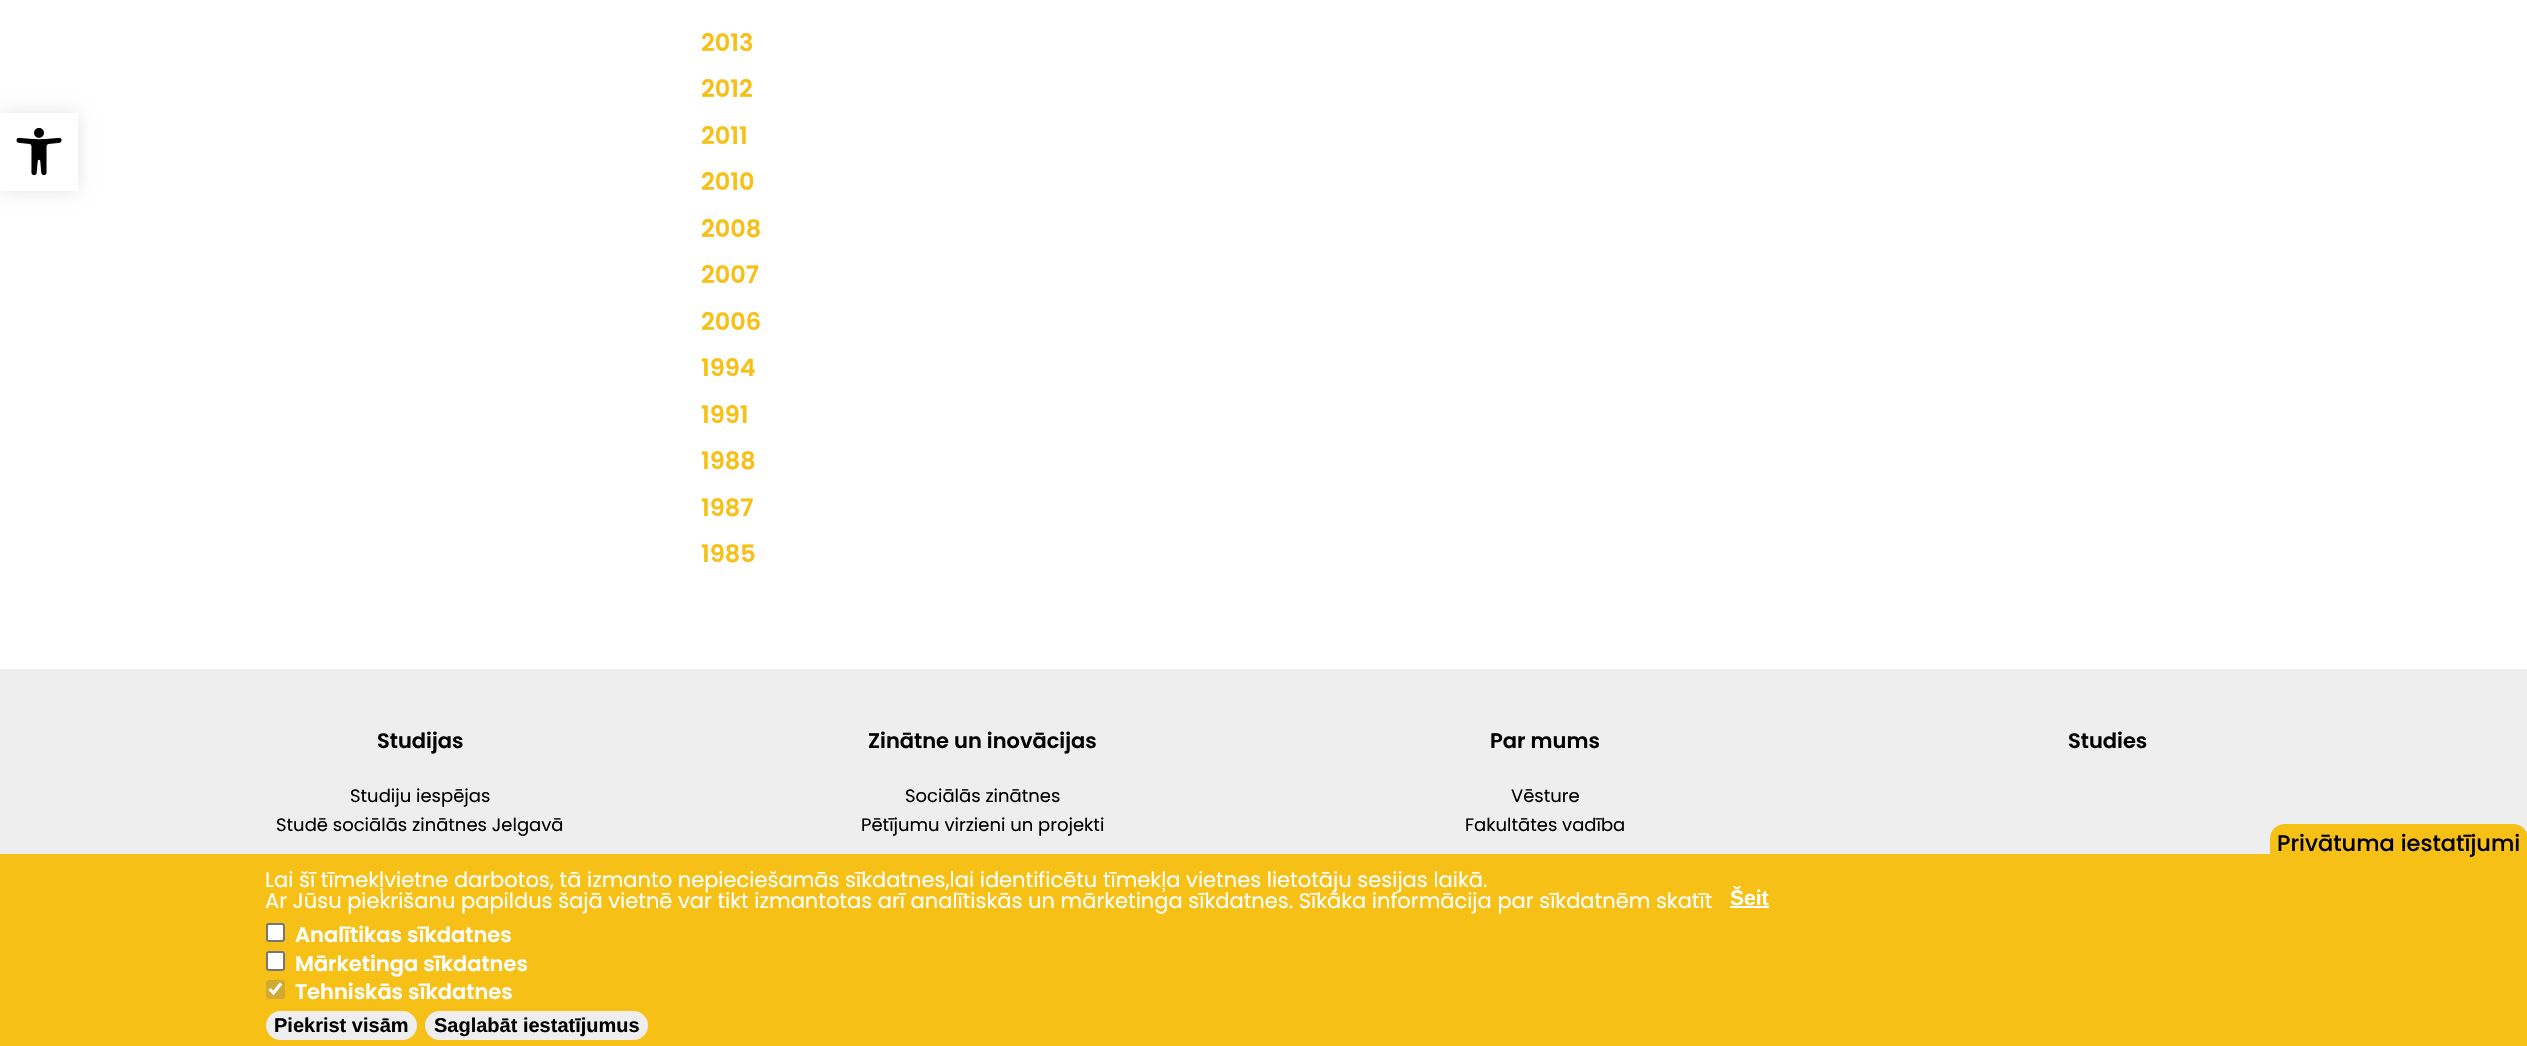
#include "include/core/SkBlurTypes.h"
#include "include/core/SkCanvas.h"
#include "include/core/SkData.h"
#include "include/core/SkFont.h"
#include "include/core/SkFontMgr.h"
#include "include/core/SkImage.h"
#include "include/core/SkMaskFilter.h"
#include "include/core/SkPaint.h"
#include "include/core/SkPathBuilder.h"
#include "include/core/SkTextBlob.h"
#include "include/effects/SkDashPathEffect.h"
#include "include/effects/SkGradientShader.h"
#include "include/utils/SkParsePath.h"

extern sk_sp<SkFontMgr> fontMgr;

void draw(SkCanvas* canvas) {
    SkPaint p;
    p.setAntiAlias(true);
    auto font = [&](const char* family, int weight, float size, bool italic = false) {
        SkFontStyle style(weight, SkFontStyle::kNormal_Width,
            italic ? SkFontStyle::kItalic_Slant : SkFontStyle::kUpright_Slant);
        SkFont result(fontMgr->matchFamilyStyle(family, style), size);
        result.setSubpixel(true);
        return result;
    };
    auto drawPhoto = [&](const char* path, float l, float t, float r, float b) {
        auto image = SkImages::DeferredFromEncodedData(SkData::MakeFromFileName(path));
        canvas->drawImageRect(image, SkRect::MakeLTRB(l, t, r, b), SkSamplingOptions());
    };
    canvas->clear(0xFFFFFFFF);
    p.setColor(0x1A000000);
    p.setMaskFilter(SkMaskFilter::MakeBlur(kNormal_SkBlurStyle, 7.5f));
    canvas->drawRect(SkRect::MakeLTRB(0, 113, 78, 191), p);
    p.setMaskFilter(nullptr);
    p.setColor(0xFFFFFFFF);
    canvas->drawRect(SkRect::MakeLTRB(0, 113, 78, 191), p);
    drawPhoto("media/1.png", 16, 128, 62, 176);
    auto font1 = font("Poppins", 600, 24);
    p.setColor(0xFFF6C016);
    {
        const struct { const char* s; float x, y; } items[] = {
            {"2013", 701, 51},
            {"2012", 701, 97},
            {"2011", 701, 144},
            {"2010", 701, 190},
            {"2008", 701, 237},
            {"2007", 701, 283},
            {"2006", 701, 330},
            {"1994", 701, 376},
            {"1991", 701, 423},
            {"1988", 701, 469},
            {"1987", 701, 516},
            {"1985", 701, 562},
        };
        for (auto [s, x, y] : items) {
            canvas->drawString(s, x, y, font1, p);
        }
    }
    p.setColor(0xFFEEEEEE);
    canvas->drawRect(SkRect::MakeLTRB(0, 669, 2527, 854), p);
    auto font2 = font("Poppins", 600, 21);
    p.setColor(0xFF000000);
    canvas->drawString("Studijas", 377, 748, font2, p);
    auto font3 = font("Poppins", 400, 18);
    canvas->drawString("Studiju iespējas", 350, 802, font3, p);
    canvas->drawString("Studē sociālās zinātnes Jelgavā", 276, 831, font3, p);
    canvas->drawString("Zinātne un inovācijas", 868, 748, font2, p);
    canvas->drawString("Sociālās zinātnes", 905, 802, font3, p);
    canvas->drawString("Pētījumu virzieni un projekti", 861, 831, font3, p);
    canvas->drawString("Par mums", 1490, 748, font2, p);
    canvas->drawString("Vēsture", 1511, 802, font3, p);
    canvas->drawString("Fakultātes vadība", 1465, 831, font3, p);
    canvas->drawString("Studies", 2068, 748, font2, p);
    p.setColor(0xFFF6C016);
    canvas->drawPath(SkPathBuilder().moveTo(2285, 824).lineTo(2513, 824).cubicTo(2521.5f, 824, 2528, 830.5f, 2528, 839).lineTo(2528, 854).lineTo(2270, 854).lineTo(2270, 839).cubicTo(2270, 830.5f, 2276.5f, 824, 2285, 824).close().detach(), p);
    canvas->drawRect(SkRect::MakeLTRB(0, 854, 2527, 1046), p);
    auto font4 = font("Poppins", 500, 22.5f);
    p.setColor(0xFF000000);
    canvas->drawString("Privātuma iestatījumi", 2277, 851, font4, p);
    auto font5 = font("Poppins", 400, 21);
    p.setColor(0xFFFFFFFF);
    canvas->drawString("Lai šī tīmekļvietne darbotos, tā izmanto nepieciešamās sīkdatnes,lai identificētu tīmekļa vietnes lietotāju sesijas laikā.", 265, 887, font5, p);
    canvas->drawString("Ar Jūsu piekrišanu papildus šajā vietnē var tikt izmantotas arī analītiskās un mārketinga sīkdatnes. Sīkāka informācija par sīkdatnēm skatīt", 265, 908, font5, p);
    auto font6 = font("Liberation Sans", 700, 21);
    canvas->drawString("Šeit", 1730, 905, font6, p);
    canvas->drawRect(SkRect::MakeLTRB(1730, 906, 1769, 908), p);
    canvas->drawRoundRect(SkRect::MakeLTRB(267, 924, 284, 941), 2, 2, p);
    p.setStyle(SkPaint::kStroke_Style);
    p.setStrokeWidth(2);
    p.setColor(0xFF767676);
    canvas->drawRoundRect(SkRect::MakeLTRB(267, 924, 284, 941), 2, 2, p);
    p.setStyle(SkPaint::kFill_Style);
    p.setColor(0xFFFFFFFF);
    canvas->drawString("Analītikas sīkdatnes", 295, 942, font2, p);
    canvas->drawRoundRect(SkRect::MakeLTRB(267, 952, 284, 970), 2, 2, p);
    p.setStyle(SkPaint::kStroke_Style);
    p.setColor(0xFF767676);
    canvas->drawRoundRect(SkRect::MakeLTRB(267, 952, 284, 970), 2, 2, p);
    p.setStyle(SkPaint::kFill_Style);
    p.setColor(0xFFFFFFFF);
    canvas->drawString("Mārketinga sīkdatnes", 295, 971, font2, p);
    p.setColor(0xFFD0AA33);
    canvas->drawRoundRect(SkRect::MakeLTRB(266, 980, 285, 999), 3, 3, p);
    p.setStyle(SkPaint::kStroke_Style);
    p.setStrokeWidth(3.1f);
    p.setColor(0xFFFFFFFF);
    canvas->drawPath(SkPathBuilder().moveTo(269.5f, 989).lineTo(273.5f, 993).lineTo(281, 983.5f).detach(), p);
    p.setStyle(SkPaint::kFill_Style);
    canvas->drawString("Tehniskās sīkdatnes", 295, 999, font2, p);
    p.setColor(0xFFEEEEEE);
    canvas->drawRoundRect(SkRect::MakeLTRB(425, 1011, 648, 1040), 14.5f, 14.5f, p);
    auto font7 = font("Liberation Sans", 700, 20);
    p.setColor(0xFF000000);
    canvas->drawString("Saglabāt iestatījumus", 434, 1032, font7, p);
    p.setColor(0xFFEEEEEE);
    canvas->drawRoundRect(SkRect::MakeLTRB(266, 1011, 417, 1040), 14.5f, 14.5f, p);
    p.setColor(0xFF000000);
    canvas->drawString("Piekrist visām", 274, 1032, font7, p);
}
